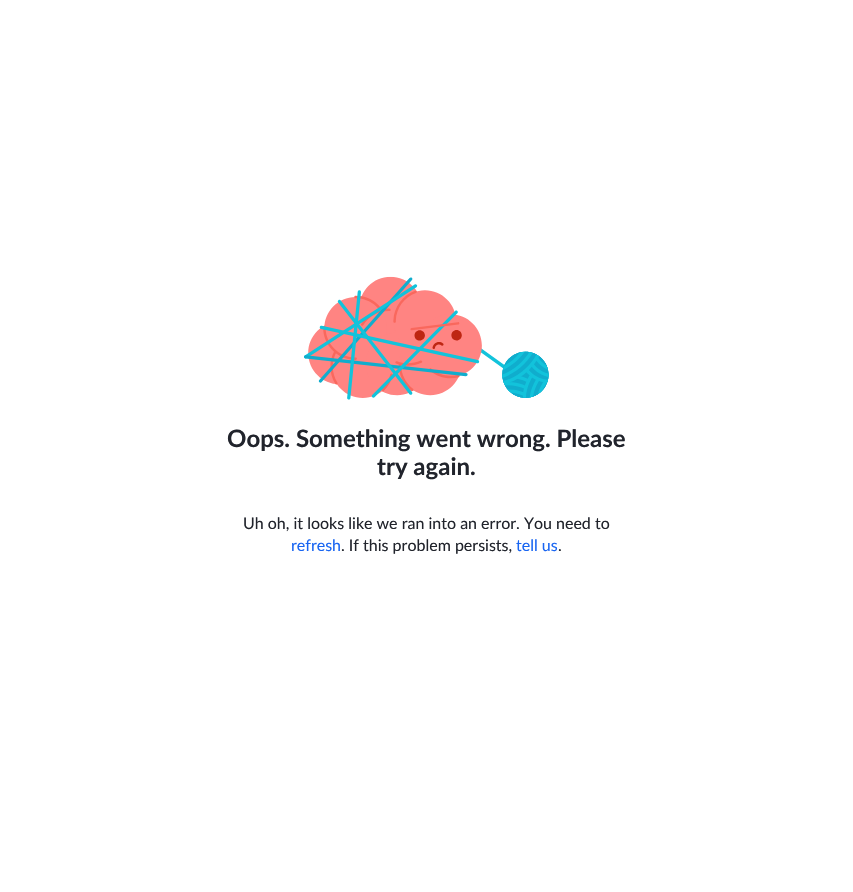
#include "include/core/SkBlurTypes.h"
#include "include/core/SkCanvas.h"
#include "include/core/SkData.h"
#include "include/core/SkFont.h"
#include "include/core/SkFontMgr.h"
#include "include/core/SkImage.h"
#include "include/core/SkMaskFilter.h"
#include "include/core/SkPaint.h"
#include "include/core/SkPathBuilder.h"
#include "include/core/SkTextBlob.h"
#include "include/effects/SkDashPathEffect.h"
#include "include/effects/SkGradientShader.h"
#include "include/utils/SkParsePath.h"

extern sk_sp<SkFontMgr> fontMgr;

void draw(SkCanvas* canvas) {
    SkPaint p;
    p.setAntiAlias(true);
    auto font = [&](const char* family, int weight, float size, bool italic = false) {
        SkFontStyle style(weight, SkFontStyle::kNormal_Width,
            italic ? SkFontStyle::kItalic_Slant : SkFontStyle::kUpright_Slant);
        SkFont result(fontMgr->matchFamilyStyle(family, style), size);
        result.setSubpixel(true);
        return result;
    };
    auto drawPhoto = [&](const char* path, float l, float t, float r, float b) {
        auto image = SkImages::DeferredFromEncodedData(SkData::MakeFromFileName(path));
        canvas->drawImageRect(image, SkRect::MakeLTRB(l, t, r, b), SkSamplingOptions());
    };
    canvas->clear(0xFFFFFFFF);
    drawPhoto("media/1.png", 304, 276, 549, 400);
    auto font1 = font("Lato", 700, 24);
    p.setColor(0xFF21242C);
    canvas->drawString("Oops. Something went wrong. Please", 227, 447, font1, p);
    canvas->drawString("try again.", 377, 475, font1, p);
    auto font2 = font("Lato", 400, 16);
    canvas->drawString("Uh oh, it looks like we ran into an error. You need to", 243, 529, font2, p);
    p.setColor(0xFF1865F2);
    canvas->drawString("refresh", 291, 551, font2, p);
    p.setColor(0xFF21242C);
    canvas->drawString(". If this problem persists,", 341, 551, font2, p);
    p.setColor(0xFF1865F2);
    canvas->drawString("tell us", 516, 551, font2, p);
    p.setColor(0xFF21242C);
    canvas->drawString(".", 558, 551, font2, p);
}
